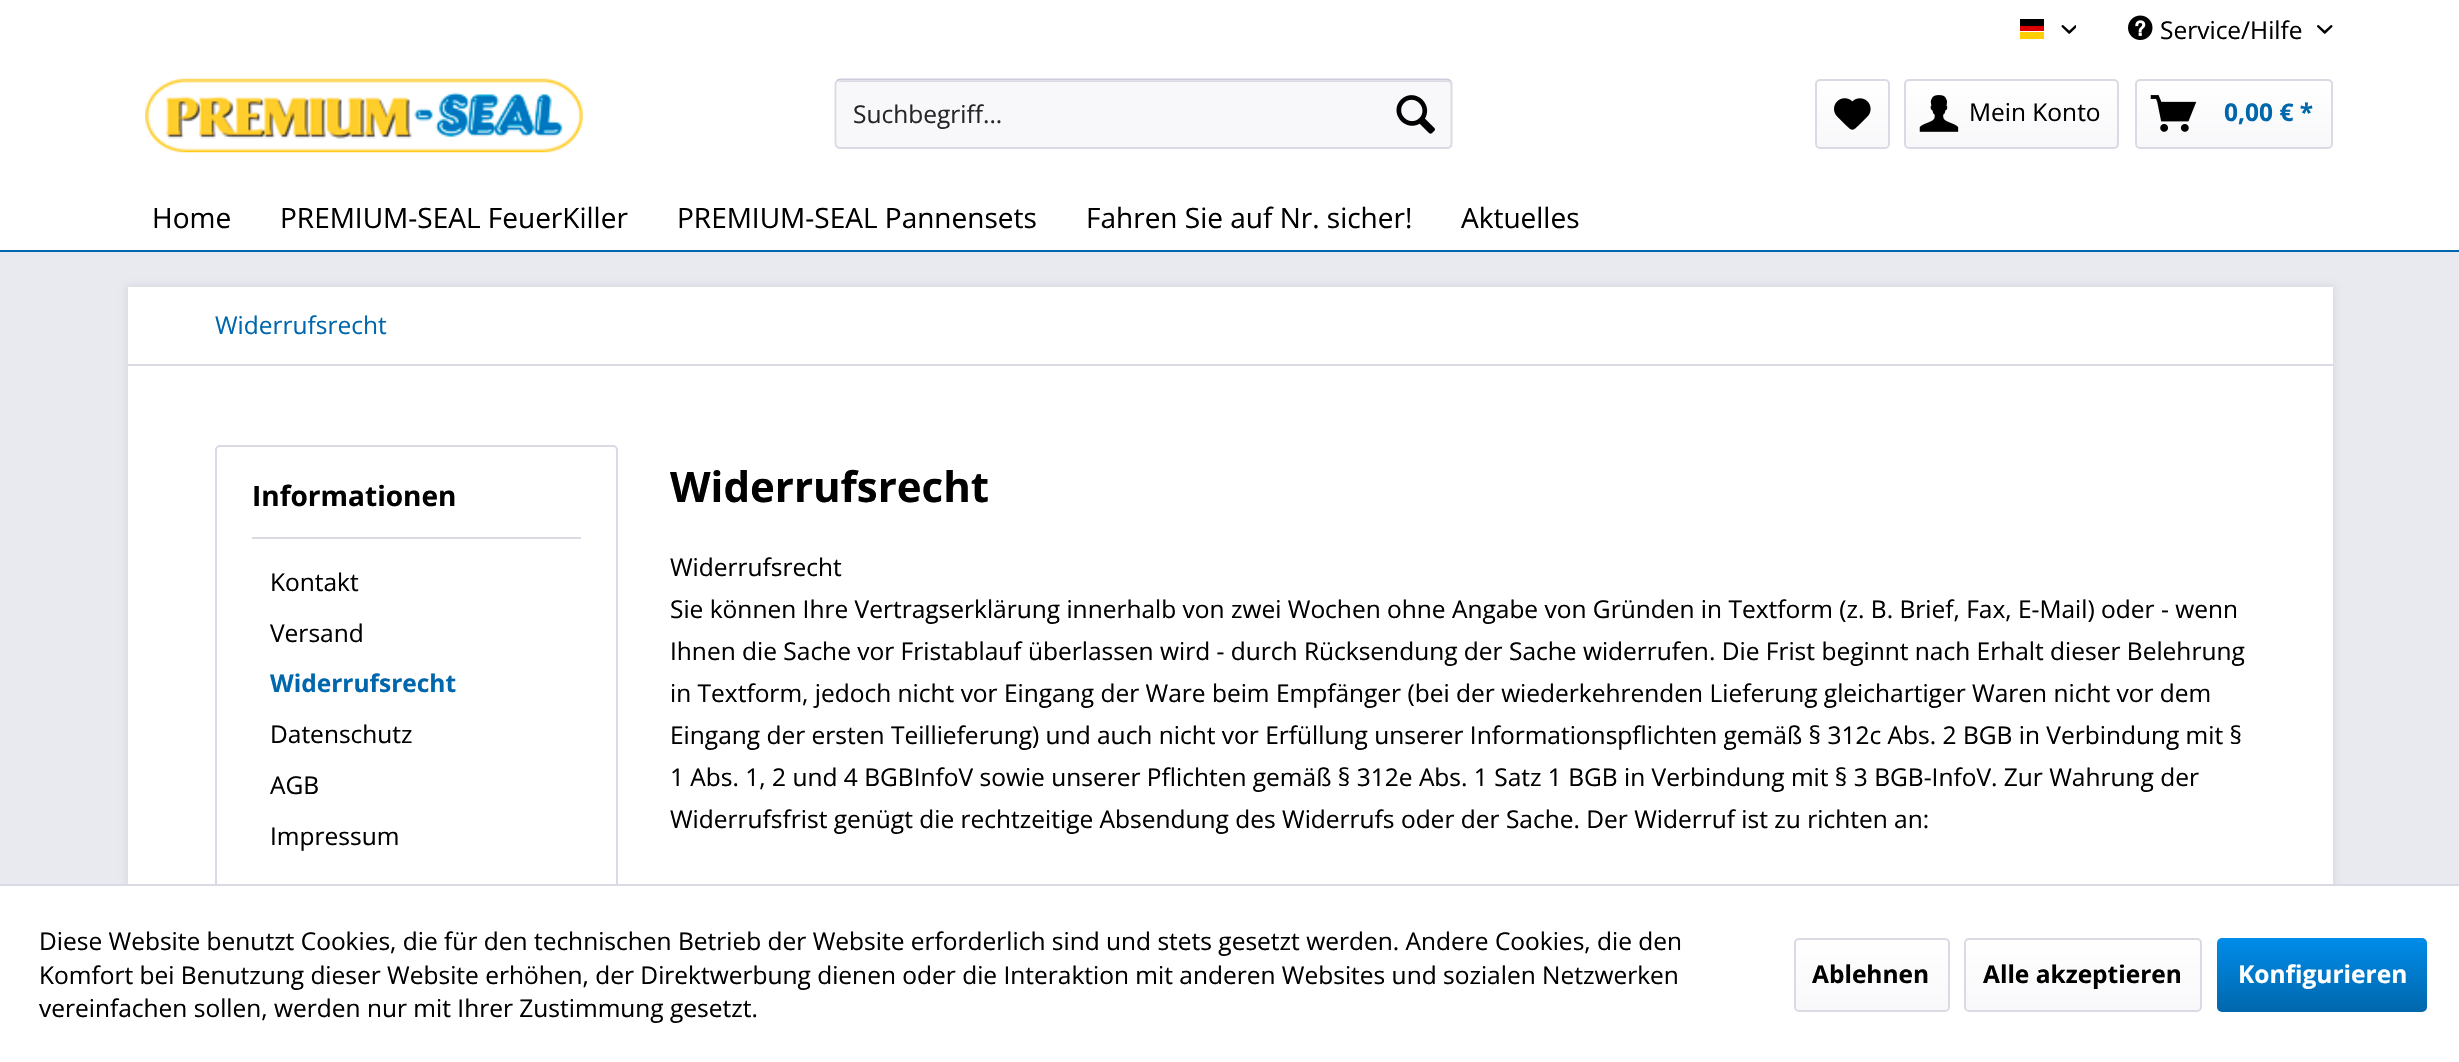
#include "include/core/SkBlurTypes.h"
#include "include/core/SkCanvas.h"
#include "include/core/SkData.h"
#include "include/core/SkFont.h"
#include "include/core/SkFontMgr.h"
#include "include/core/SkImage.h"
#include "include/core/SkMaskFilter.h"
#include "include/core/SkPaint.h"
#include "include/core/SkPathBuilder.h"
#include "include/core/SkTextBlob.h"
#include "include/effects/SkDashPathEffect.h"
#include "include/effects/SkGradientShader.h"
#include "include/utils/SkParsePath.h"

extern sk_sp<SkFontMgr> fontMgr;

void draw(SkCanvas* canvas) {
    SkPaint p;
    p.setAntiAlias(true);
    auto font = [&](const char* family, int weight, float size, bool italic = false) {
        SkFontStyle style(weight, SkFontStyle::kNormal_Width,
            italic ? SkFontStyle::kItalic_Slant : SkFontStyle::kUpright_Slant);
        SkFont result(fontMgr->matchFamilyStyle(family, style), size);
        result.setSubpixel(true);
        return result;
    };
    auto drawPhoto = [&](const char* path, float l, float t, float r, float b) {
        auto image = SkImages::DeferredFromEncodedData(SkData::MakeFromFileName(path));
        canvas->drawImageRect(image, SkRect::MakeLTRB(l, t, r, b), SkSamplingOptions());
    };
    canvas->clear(0xFFE9E9F0);
    {
        const struct { float l, t, r, b; SkColor color; } items[] = {
            {0, 0, 2459, 250, 0xFFFFFFFF},
            {2020, 19, 2044, 26, 0xFF000000},
            {2020, 26, 2044, 31, 0xFFDD0000},
            {2020, 32, 2044, 39, 0xFFFFCE00},
        };
        for (auto [l, t, r, b, color] : items) {
            p.setColor(color);
            canvas->drawRect(SkRect::MakeLTRB(l, t, r, b), p);
        }
    }
    drawPhoto("media/1.png", 2061, 25, 2076, 34);
    drawPhoto("media/2.png", 2128, 15, 2153, 40);
    auto font1 = font("Open Sans", 400, 24.5f);
    p.setColor(0xFF000000);
    canvas->drawString("Service/Hilfe", 2160, 39, font1, p);
    drawPhoto("media/3.png", 2317, 25, 2333, 34);
    drawPhoto("media/4.png", 145, 78, 583, 153);
    p.setColor(0xFFF8F8FA);
    canvas->drawRoundRect(SkRect::MakeLTRB(835, 79, 1453, 149), 5, 5, p);
    p.setColor(0xFFDADAE5);
    canvas->drawPath(SkPathBuilder().moveTo(840, 82).lineTo(1447, 82).cubicTo(1449, 82, 1451, 84, 1451, 86).lineTo(1451, 85).cubicTo(1451, 83, 1449, 81, 1447, 81).lineTo(841, 81).cubicTo(840, 81, 838, 82, 838, 83).close().detach(), p);
    p.setStyle(SkPaint::kStroke_Style);
    p.setStrokeWidth(1.8f);
    p.setColor(0xFFCBCBDB);
    canvas->drawPath(SkPathBuilder().moveTo(837, 81).cubicTo(837.5f, 80, 839, 79.5f, 840, 79.5f).lineTo(1447, 79.5f).cubicTo(1448.5f, 79.5f, 1449.5f, 80, 1450.5f, 81).detach(), p);
    p.setColor(0xFFDADAE5);
    canvas->drawPath(SkPathBuilder().moveTo(1450.5f, 81).cubicTo(1451, 81.5f, 1451.5f, 83, 1451.5f, 84).lineTo(1451.5f, 143.5f).cubicTo(1451.5f, 144.5f, 1451, 146, 1450.5f, 146.5f).cubicTo(1449.5f, 147.5f, 1448.5f, 148, 1447, 148).lineTo(840, 148).cubicTo(839, 148, 837.5f, 147.5f, 837, 146.5f).cubicTo(836, 146, 835.5f, 144.5f, 835.5f, 143.5f).lineTo(835.5f, 84).cubicTo(835.5f, 83, 836, 81.5f, 837, 81).detach(), p);
    p.setStyle(SkPaint::kFill_Style);
    p.setColor(0xFF262626);
    canvas->drawString("Suchbegriff...", 853, 123, font1, p);
    drawPhoto("media/5.png", 1396, 95, 1435, 134);
    {
        const SkColor colors[] = {0xFFFFFFFF, 0xFFF8F8FA};
        const float stops[] = {0, 1};
        const SkPoint ends[] = {{1852, 81}, {1852, 147}};
        p.setShader(SkGradientShader::MakeLinear(ends, colors, stops, 2, SkTileMode::kClamp));
        p.setAlpha(255);
    }
    canvas->drawRoundRect(SkRect::MakeLTRB(1817, 81, 1888, 147), 4, 4, p);
    p.setStyle(SkPaint::kStroke_Style);
    p.setStrokeWidth(2);
    p.setShader(nullptr);
    p.setColor(0xFFDADAE5);
    canvas->drawRoundRect(SkRect::MakeLTRB(1816, 80, 1889, 148), 4, 4, p);
    drawPhoto("media/6.png", 1834, 98, 1871, 130);
    p.setStyle(SkPaint::kFill_Style);
    {
        const SkColor colors[] = {0xFFFFFFFF, 0xFFF8F8FA};
        const float stops[] = {0, 1};
        const SkPoint ends[] = {{2012, 80}, {2012, 147}};
        p.setShader(SkGradientShader::MakeLinear(ends, colors, stops, 2, SkTileMode::kClamp));
        p.setAlpha(255);
    }
    canvas->drawRoundRect(SkRect::MakeLTRB(1906, 81, 2118, 147), 4, 4, p);
    p.setStyle(SkPaint::kStroke_Style);
    p.setShader(nullptr);
    p.setColor(0xFFDADAE5);
    canvas->drawRoundRect(SkRect::MakeLTRB(1905, 80, 2118, 148), 4, 4, p);
    drawPhoto("media/7.png", 1919, 95, 1959, 132);
    p.setStyle(SkPaint::kFill_Style);
    p.setColor(0xFF000000);
    canvas->drawString("Mein Konto", 1969, 121, font1, p);
    {
        const SkColor colors[] = {0xFFFFFFFF, 0xFFF8F8FA};
        const float stops[] = {0, 1};
        const SkPoint ends[] = {{2234, 80}, {2234, 147}};
        p.setShader(SkGradientShader::MakeLinear(ends, colors, stops, 2, SkTileMode::kClamp));
        p.setAlpha(255);
    }
    canvas->drawRoundRect(SkRect::MakeLTRB(2137, 81, 2331, 147), 4, 4, p);
    p.setStyle(SkPaint::kStroke_Style);
    p.setShader(nullptr);
    p.setColor(0xFFDADAE5);
    canvas->drawRoundRect(SkRect::MakeLTRB(2136, 80, 2332, 148), 4, 4, p);
    drawPhoto("media/8.png", 2150, 95, 2197, 132);
    auto font2 = font("Open Sans", 700, 24.5f);
    p.setStyle(SkPaint::kFill_Style);
    p.setColor(0xFF0067AC);
    canvas->drawString("0,00 € *", 2224, 121, font2, p);
    canvas->drawRect(SkRect::MakeLTRB(0, 250, 2459, 252), p);
    auto font3 = font("Open Sans", 400, 28);
    p.setColor(0xFF000000);
    {
        const struct { const char* s; float x, y; } items[] = {
            {"Home", 152, 228},
            {"PREMIUM-SEAL FeuerKiller", 280, 228},
            {"PREMIUM-SEAL Pannensets", 677, 228},
            {"Fahren Sie auf Nr. sicher!", 1086, 228},
            {"Aktuelles", 1461, 228},
        };
        for (auto [s, x, y] : items) {
            canvas->drawString(s, x, y, font3, p);
        }
    }
    p.setColor(0xFFDADAE5);
    p.setMaskFilter(SkMaskFilter::MakeBlur(kNormal_SkBlurStyle, 3.5f));
    canvas->drawRect(SkRect::MakeLTRB(126, 285, 2335, 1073), p);
    p.setMaskFilter(nullptr);
    p.setColor(0xFFFFFFFF);
    canvas->drawRect(SkRect::MakeLTRB(128, 287, 2333, 884), p);
    p.setColor(0xFFDADAE5);
    canvas->drawRect(SkRect::MakeLTRB(128, 364, 2333, 366), p);
    p.setColor(0xFF0067AC);
    canvas->drawString("Widerrufsrecht", 215, 334, font1, p);
    p.setStyle(SkPaint::kStroke_Style);
    p.setColor(0xFFDADAE5);
    canvas->drawRoundRect(SkRect::MakeLTRB(216, 446, 617, 888), 4, 4, p);
    p.setStyle(SkPaint::kFill_Style);
    canvas->drawRect(SkRect::MakeLTRB(252, 537, 581, 539), p);
    auto font4 = font("Open Sans", 700, 28);
    p.setColor(0xFF000000);
    canvas->drawString("Informationen", 252, 506, font4, p);
    canvas->drawString("Kontakt", 270, 591, font1, p);
    canvas->drawString("Versand", 270, 642, font1, p);
    p.setColor(0xFF0067AC);
    canvas->drawString("Widerrufsrecht", 270, 692, font2, p);
    p.setColor(0xFF000000);
    {
        const struct { const char* s; float x, y; } items[] = {
            {"Datenschutz", 270, 743},
            {"AGB", 270, 794},
            {"Impressum", 270, 845},
        };
        for (auto [s, x, y] : items) {
            canvas->drawString(s, x, y, font1, p);
        }
    }
    auto font5 = font("Open Sans", 700, 42);
    canvas->drawString("Widerrufsrecht", 670, 502, font5, p);
    {
        const struct { const char* s; float x, y; } items[] = {
            {"Widerrufsrecht", 670, 576},
            {"Sie können Ihre Vertragserklärung innerhalb von zwei Wochen ohne Angabe von Gründen in Textform (z. B. Brief, Fax, E-Mail) oder - wenn", 670, 618},
            {"Ihnen die Sache vor Fristablauf überlassen wird - durch Rücksendung der Sache widerrufen. Die Frist beginnt nach Erhalt dieser Belehrung", 670, 660},
            {"in Textform, jedoch nicht vor Eingang der Ware beim Empfänger (bei der wiederkehrenden Lieferung gleichartiger Waren nicht vor dem", 670, 702},
            {"Eingang der ersten Teillieferung) und auch nicht vor Erfüllung unserer Informationspflichten gemäß § 312c Abs. 2 BGB in Verbindung mit §", 670, 744},
            {"1 Abs. 1, 2 und 4 BGBInfoV sowie unserer Pflichten gemäß § 312e Abs. 1 Satz 1 BGB in Verbindung mit § 3 BGB-InfoV. Zur Wahrung der", 670, 786},
            {"Widerrufsfrist genügt die rechtzeitige Absendung des Widerrufs oder der Sache. Der Widerruf ist zu richten an:", 670, 828},
        };
        for (auto [s, x, y] : items) {
            canvas->drawString(s, x, y, font1, p);
        }
    }
    p.setColor(0xFFFFFFFF);
    canvas->drawRect(SkRect::MakeLTRB(0, 886, 2459, 1062), p);
    p.setColor(0xFFDADAE5);
    canvas->drawRect(SkRect::MakeLTRB(0, 884, 2459, 886), p);
    p.setColor(0xFF000000);
    {
        const struct { const char* s; float x, y; } items[] = {
            {"Diese Website benutzt Cookies, die für den technischen Betrieb der Website erforderlich sind und stets gesetzt werden. Andere Cookies, die den", 39, 950},
            {"Komfort bei Benutzung dieser Website erhöhen, der Direktwerbung dienen oder die Interaktion mit anderen Websites und sozialen Netzwerken", 39, 984},
            {"vereinfachen sollen, werden nur mit Ihrer Zustimmung gesetzt.", 39, 1017},
        };
        for (auto [s, x, y] : items) {
            canvas->drawString(s, x, y, font1, p);
        }
    }
    {
        const SkColor colors[] = {0xFFFFFFFF, 0xFFF8F8FA};
        const float stops[] = {0, 1};
        const SkPoint ends[] = {{1872, 940}, {1872, 1010}};
        p.setShader(SkGradientShader::MakeLinear(ends, colors, stops, 2, SkTileMode::kClamp));
        p.setAlpha(255);
    }
    canvas->drawRoundRect(SkRect::MakeLTRB(1796, 940, 1948, 1010), 4, 4, p);
    p.setStyle(SkPaint::kStroke_Style);
    p.setShader(nullptr);
    p.setColor(0xFFDADAE5);
    canvas->drawRoundRect(SkRect::MakeLTRB(1795, 939, 1949, 1011), 4, 4, p);
    p.setStyle(SkPaint::kFill_Style);
    p.setColor(0xFF000000);
    canvas->drawString("Ablehnen", 1812, 983, font2, p);
    {
        const SkColor colors[] = {0xFFFFFFFF, 0xFFF8F8FA};
        const float stops[] = {0, 1};
        const SkPoint ends[] = {{2083, 940}, {2083, 1010}};
        p.setShader(SkGradientShader::MakeLinear(ends, colors, stops, 2, SkTileMode::kClamp));
        p.setAlpha(255);
    }
    canvas->drawRoundRect(SkRect::MakeLTRB(1965, 940, 2200, 1010), 4, 4, p);
    p.setStyle(SkPaint::kStroke_Style);
    p.setShader(nullptr);
    p.setColor(0xFFDADAE5);
    canvas->drawRoundRect(SkRect::MakeLTRB(1965, 939, 2201, 1011), 4, 4, p);
    p.setStyle(SkPaint::kFill_Style);
    p.setColor(0xFF000000);
    canvas->drawString("Alle akzeptieren", 1983, 983, font2, p);
    {
        const SkColor colors[] = {0xFF008CE9, 0xFF0067AC};
        const float stops[] = {0, 1};
        const SkPoint ends[] = {{2322, 938}, {2322, 1012}};
        p.setShader(SkGradientShader::MakeLinear(ends, colors, stops, 2, SkTileMode::kClamp));
        p.setAlpha(255);
    }
    canvas->drawRoundRect(SkRect::MakeLTRB(2217, 938, 2427, 1012), 5, 5, p);
    p.setShader(nullptr);
    p.setColor(0xFFFFFFFF);
    canvas->drawString("Konfigurieren", 2238, 983, font2, p);
}
